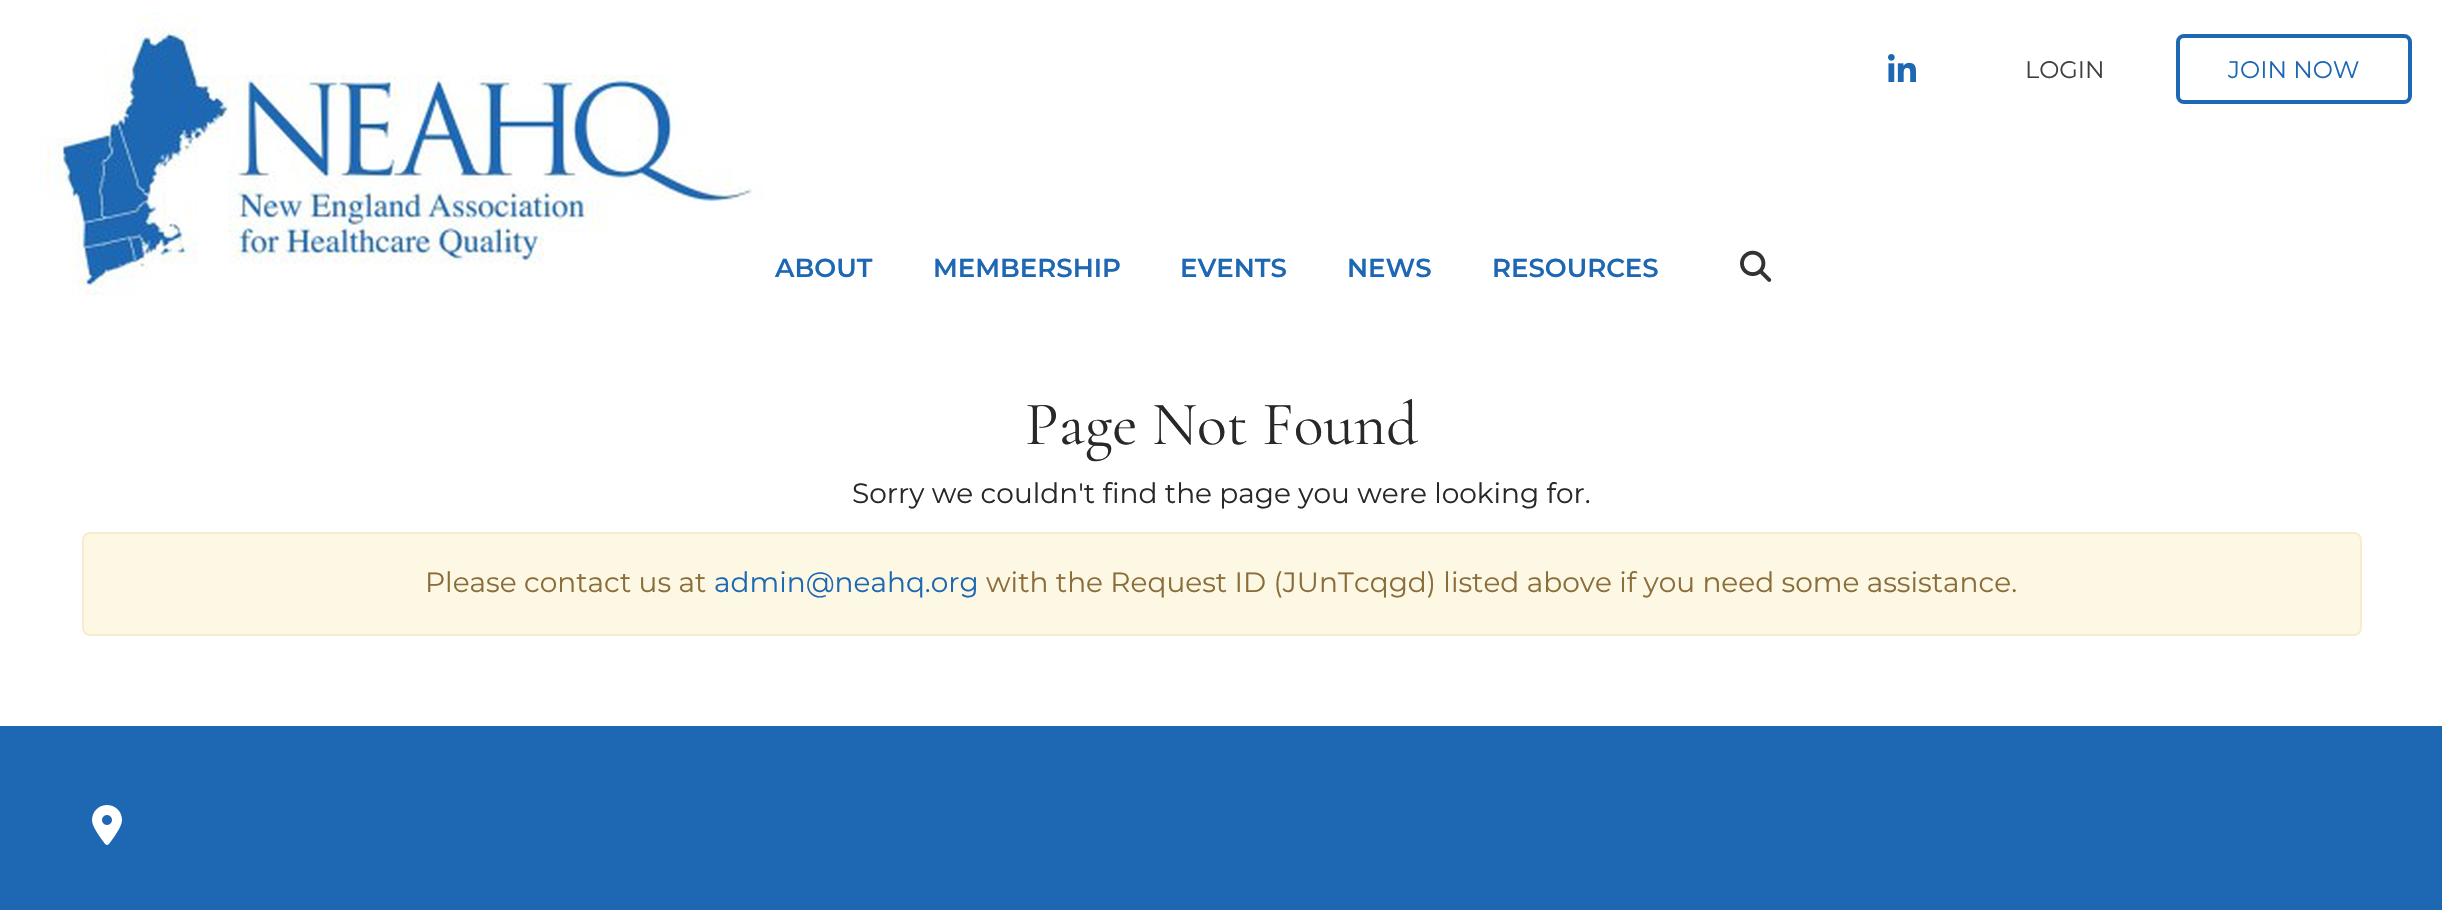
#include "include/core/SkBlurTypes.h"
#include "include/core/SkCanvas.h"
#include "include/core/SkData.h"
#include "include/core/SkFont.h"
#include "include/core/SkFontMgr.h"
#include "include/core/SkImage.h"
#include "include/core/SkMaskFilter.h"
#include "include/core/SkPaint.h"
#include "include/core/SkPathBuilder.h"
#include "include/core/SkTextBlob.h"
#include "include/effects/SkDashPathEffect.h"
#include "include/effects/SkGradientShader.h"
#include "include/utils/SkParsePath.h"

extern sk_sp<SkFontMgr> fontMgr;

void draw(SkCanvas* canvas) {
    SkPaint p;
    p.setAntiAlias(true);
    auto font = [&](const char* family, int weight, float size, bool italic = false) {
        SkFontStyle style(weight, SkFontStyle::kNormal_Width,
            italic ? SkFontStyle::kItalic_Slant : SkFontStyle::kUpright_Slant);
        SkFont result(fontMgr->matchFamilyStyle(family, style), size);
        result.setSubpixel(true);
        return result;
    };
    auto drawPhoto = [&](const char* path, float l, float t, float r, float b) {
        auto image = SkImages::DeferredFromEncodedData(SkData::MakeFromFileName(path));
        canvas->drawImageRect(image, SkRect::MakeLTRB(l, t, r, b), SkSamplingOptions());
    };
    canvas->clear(0xFFFFFFFF);
    drawPhoto("media/1.png", 40, 12, 764, 296);
    drawPhoto("media/2.png", 1888, 54, 1916, 82);
    auto font1 = font("Montserrat", 400, 24);
    p.setColor(0xFF404040);
    canvas->drawString("LOGIN", 2025, 78, font1, p);
    p.setStyle(SkPaint::kStroke_Style);
    p.setStrokeWidth(4);
    p.setColor(0xFF1E68B3);
    canvas->drawRoundRect(SkRect::MakeLTRB(2178, 36, 2410, 102), 6, 6, p);
    p.setStyle(SkPaint::kFill_Style);
    canvas->drawString("JOIN NOW", 2228, 78, font1, p);
    auto font2 = font("Montserrat", 600, 26);
    {
        const struct { const char* s; float x, y; } items[] = {
            {"ABOUT", 775, 277},
            {"MEMBERSHIP", 933, 277},
            {"EVENTS", 1180, 277},
            {"NEWS", 1347, 277},
            {"RESOURCES", 1492, 277},
        };
        for (auto [s, x, y] : items) {
            canvas->drawString(s, x, y, font2, p);
        }
    }
    drawPhoto("media/3.png", 1740, 250, 1772, 282);
    auto font3 = font("Cormorant Garamond", 400, 62);
    p.setColor(0xFF282828);
    canvas->drawString("Page Not Found", 1025, 444, font3, p);
    auto font4 = font("Montserrat", 400, 28);
    canvas->drawString("Sorry we couldn't find the page you were looking for.", 852, 503, font4, p);
    p.setColor(0xFFFCF8E3);
    canvas->drawRoundRect(SkRect::MakeLTRB(83, 533, 2361, 635), 7, 7, p);
    p.setStyle(SkPaint::kStroke_Style);
    p.setStrokeWidth(2);
    p.setColor(0xFFFAEBCC);
    canvas->drawRoundRect(SkRect::MakeLTRB(83, 533, 2361, 635), 7, 7, p);
    p.setStyle(SkPaint::kFill_Style);
    p.setColor(0xFF8A6D3B);
    canvas->drawString("Please contact us at", 425, 592, font4, p);
    p.setColor(0xFF1E68B3);
    canvas->drawString("admin@neahq.org", 714, 592, font4, p);
    p.setColor(0xFF8A6D3B);
    canvas->drawString("with the Request ID (JUnTcqgd) listed above if you need some assistance.", 986, 592, font4, p);
    p.setColor(0xFF1E68B3);
    canvas->drawRect(SkRect::MakeLTRB(0, 726, 2442, 910), p);
    drawPhoto("media/4.png", 92, 805, 122, 845);
}
